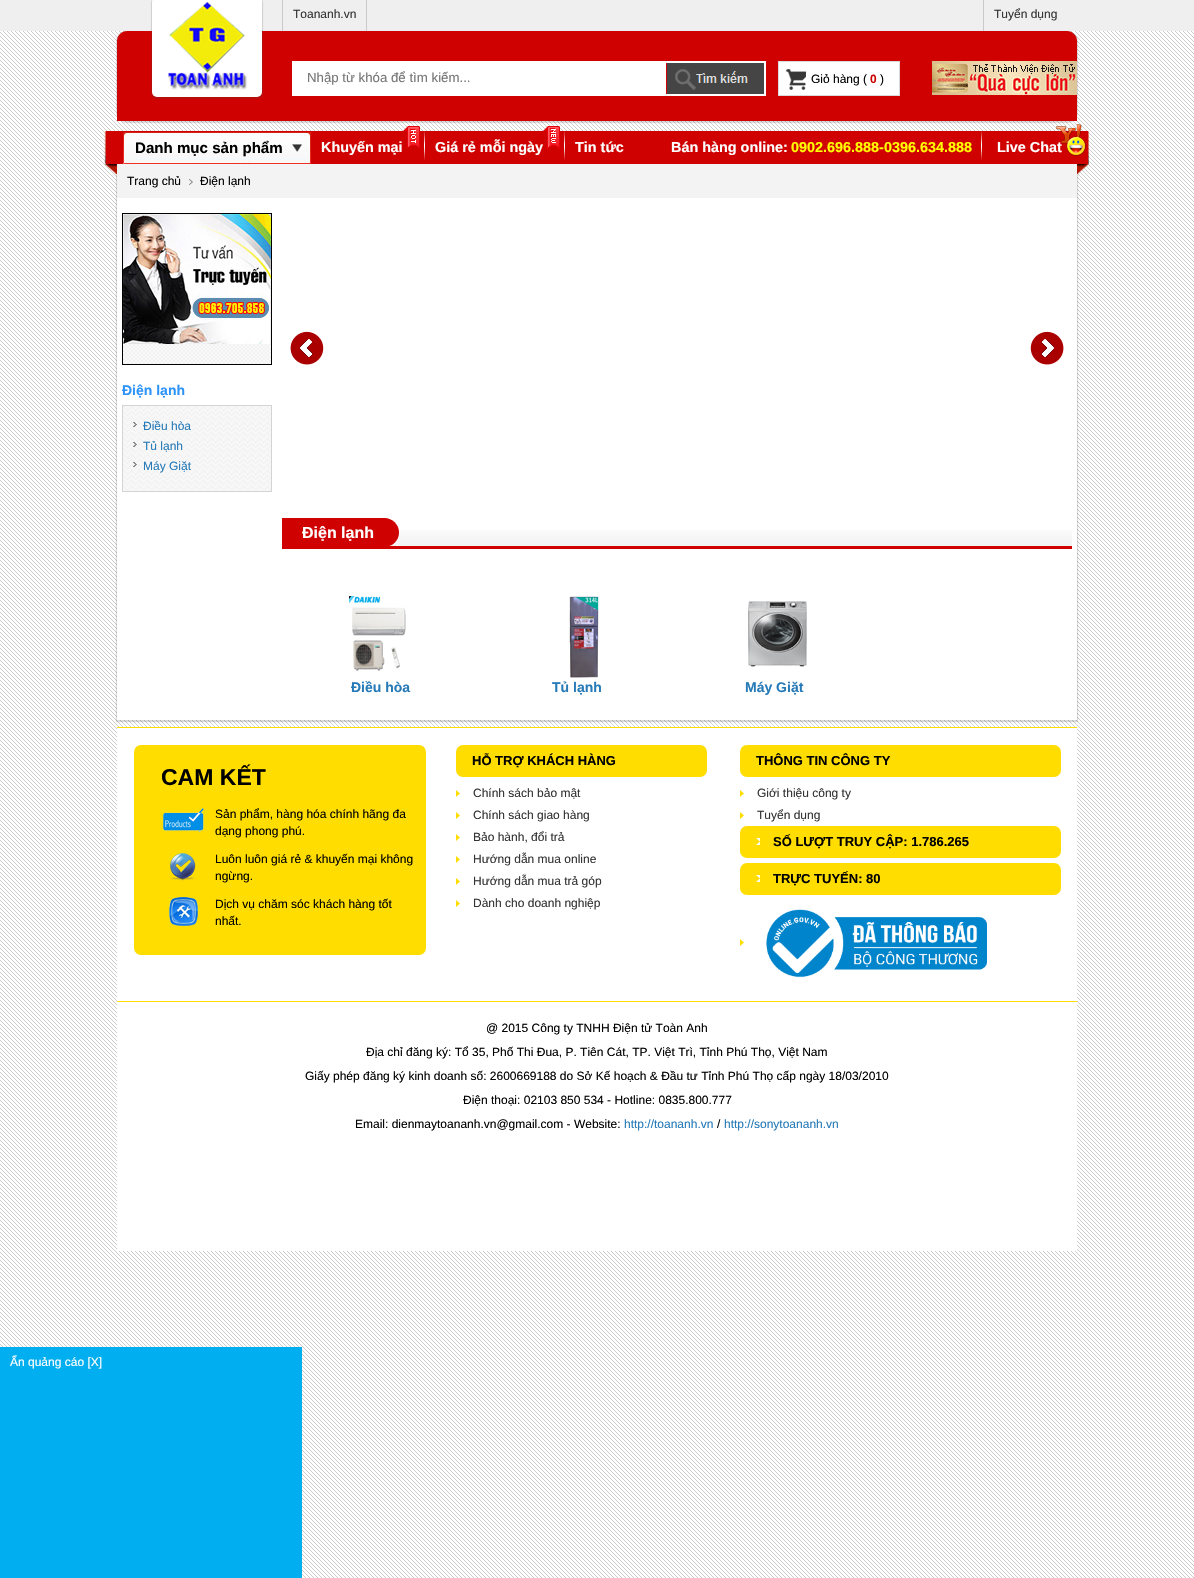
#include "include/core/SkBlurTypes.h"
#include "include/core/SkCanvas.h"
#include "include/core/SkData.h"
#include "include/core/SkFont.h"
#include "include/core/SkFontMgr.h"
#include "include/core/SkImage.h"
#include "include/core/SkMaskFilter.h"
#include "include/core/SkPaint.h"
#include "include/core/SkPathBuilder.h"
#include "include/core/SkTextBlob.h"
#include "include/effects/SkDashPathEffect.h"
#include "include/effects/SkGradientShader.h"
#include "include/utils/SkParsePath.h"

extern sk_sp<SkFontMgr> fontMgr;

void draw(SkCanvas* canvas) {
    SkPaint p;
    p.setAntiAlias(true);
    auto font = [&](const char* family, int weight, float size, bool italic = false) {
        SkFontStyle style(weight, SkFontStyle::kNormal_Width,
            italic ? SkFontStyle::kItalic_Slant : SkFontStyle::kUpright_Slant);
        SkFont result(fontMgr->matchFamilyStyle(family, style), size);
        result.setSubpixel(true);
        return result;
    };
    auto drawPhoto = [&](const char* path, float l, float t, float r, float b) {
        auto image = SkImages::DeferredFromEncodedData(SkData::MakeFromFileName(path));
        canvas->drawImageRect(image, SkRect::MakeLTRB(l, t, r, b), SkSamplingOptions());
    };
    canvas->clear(0xFFFFFFFF);
    drawPhoto("media/1.png", 0, 31, 1194, 1578);
    p.setColor(0xFFEFEFEF);
    canvas->drawRect(SkRect::MakeLTRB(0, 0, 1194, 31), p);
    p.setColor(0x33464646);
    p.setMaskFilter(SkMaskFilter::MakeBlur(kNormal_SkBlurStyle, 0.5f));
    canvas->drawRoundRect(SkRect::MakeLTRB(116, 31, 1078, 123), 11, 11, p);
    p.setMaskFilter(nullptr);
    p.setColor(0xFFCACACC);
    canvas->drawRect(SkRect::MakeLTRB(282, 0, 283, 31), p);
    canvas->drawRect(SkRect::MakeLTRB(366, 0, 367, 31), p);
    auto font1 = font("Liberation Sans", 400, 12);
    p.setColor(0xFF333333);
    canvas->drawString("Toananh.vn", 293, 18, font1, p);
    p.setColor(0xFFCACACC);
    canvas->drawRect(SkRect::MakeLTRB(983, 0, 984, 31), p);
    p.setColor(0xFF333333);
    canvas->drawString("Tuyển dụng", 994, 18, font1, p);
    p.setColor(0xFFCF0101);
    canvas->drawPath(SkPathBuilder().moveTo(127, 31).lineTo(1067, 31).cubicTo(1072.5f, 31, 1077, 35.5f, 1077, 41).lineTo(1077, 121).lineTo(117, 121).lineTo(117, 41).cubicTo(117, 35.5f, 121.5f, 31, 127, 31).close().detach(), p);
    p.setColor(0x33464646);
    p.setMaskFilter(SkMaskFilter::MakeBlur(kNormal_SkBlurStyle, 0.5f));
    canvas->drawRoundRect(SkRect::MakeLTRB(151, -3, 263, 99), 6, 6, p);
    p.setMaskFilter(nullptr);
    p.setColor(0xFFFFFFFF);
    canvas->drawRoundRect(SkRect::MakeLTRB(152, -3, 262, 97), 5, 5, p);
    drawPhoto("media/2.png", 168, 2, 247, 90);
    p.setStyle(SkPaint::kStroke_Style);
    p.setStrokeWidth(2);
    canvas->drawRect(SkRect::MakeLTRB(293, 62, 765, 95), p);
    p.setStyle(SkPaint::kFill_Style);
    canvas->drawRect(SkRect::MakeLTRB(294, 63, 666, 94), p);
    auto font2 = font("Liberation Sans", 400, 13.25f);
    p.setColor(0xFF757575);
    canvas->drawString("Nhập từ khóa để tìm kiếm...", 307, 82, font2, p);
    p.setColor(0xFF454545);
    canvas->drawRect(SkRect::MakeLTRB(667, 63, 764, 94), p);
    drawPhoto("media/3.png", 675, 69, 748, 90);
    p.setColor(0xFFFFFFFF);
    canvas->drawRect(SkRect::MakeLTRB(778.5f, 61.5f, 899.5f, 95.5f), p);
    p.setStyle(SkPaint::kStroke_Style);
    p.setStrokeWidth(1);
    p.setColor(0xFFDADADA);
    canvas->drawRect(SkRect::MakeLTRB(778.5f, 61.5f, 899.5f, 95.5f), p);
    drawPhoto("media/4.png", 786, 69, 806, 90);
    p.setStyle(SkPaint::kFill_Style);
    p.setColor(0xFF000000);
    canvas->drawString("Giỏ hàng (", 811, 83, font1, p);
    auto font3 = font("Liberation Sans", 700, 12);
    p.setColor(0xFFCC0000);
    canvas->drawString("0", 870, 83, font3, p);
    p.setColor(0xFF000000);
    canvas->drawString(")", 880, 83, font1, p);
    drawPhoto("media/5.png", 932, 61, 1077, 95);
    p.setColor(0x33464646);
    p.setMaskFilter(SkMaskFilter::MakeBlur(kNormal_SkBlurStyle, 0.5f));
    canvas->drawRect(SkRect::MakeLTRB(116, 131, 1078, 722), p);
    p.setMaskFilter(nullptr);
    p.setColor(0xFFFFFFFF);
    canvas->drawRect(SkRect::MakeLTRB(117, 198, 1077, 720), p);
    p.setColor(0xFFCF0101);
    canvas->drawRect(SkRect::MakeLTRB(122, 131, 1072, 164), p);
    drawPhoto("media/7.png", 123, 132, 311, 164);
    auto font4 = font("Liberation Sans", 700, 15.1f);
    p.setColor(0xFF000000);
    canvas->drawString("Danh mục sản phẩm", 135, 153, font4, p);
    p.setColor(0xFFF3F3F3);
    canvas->drawRect(SkRect::MakeLTRB(117, 164, 1077, 198), p);
    drawPhoto("media/6.png", 104, 131, 122, 174);
    drawPhoto("media/8.png", 424, 131, 425, 160);
    auto font5 = font("Liberation Sans", 700, 14.4f);
    p.setColor(0xFFFFFFFF);
    canvas->drawString("Khuyến mại", 321, 152, font5, p);
    drawPhoto("media/9.png", 403, 126, 420, 149);
    drawPhoto("media/8.png", 564, 131, 565, 160);
    canvas->drawString("Giá rẻ mỗi ngày", 435, 152, font5, p);
    drawPhoto("media/10.png", 543, 126, 560, 150);
    canvas->drawString("Tin tức", 575, 152, font5, p);
    drawPhoto("media/8.png", 981, 131, 982, 160);
    canvas->drawString("Bán hàng online:", 671, 152, font5, p);
    p.setColor(0xFFFFFF00);
    canvas->drawString("0902.696.888-0396.634.888", 791, 152, font5, p);
    p.setColor(0xFFFFFFFF);
    canvas->drawString("Live Chat", 997, 152, font5, p);
    drawPhoto("media/12.png", 1072, 131, 1089, 174);
    drawPhoto("media/11.png", 1056, 124, 1086, 156);
    p.setColor(0xFF000000);
    canvas->drawString("Trang chủ", 127, 185, font1, p);
    drawPhoto("media/13.png", 189, 179, 193, 185);
    canvas->drawString("Điện lạnh", 200, 185, font1, p);
    drawPhoto("media/14.png", 123, 344, 271, 364);
    p.setStyle(SkPaint::kStroke_Style);
    canvas->drawRect(SkRect::MakeLTRB(122.5f, 213.5f, 271.5f, 364.5f), p);
    drawPhoto("media/15.png", 123, 214, 271, 344);
    auto font6 = font("Liberation Sans", 700, 14);
    p.setStyle(SkPaint::kFill_Style);
    p.setColor(0xFF2D93F9);
    canvas->drawString("Điện lạnh", 122, 395, font6, p);
    drawPhoto("media/16.png", 123, 406, 271, 491);
    p.setStyle(SkPaint::kStroke_Style);
    p.setColor(0xFFD4D4D4);
    canvas->drawRect(SkRect::MakeLTRB(122.5f, 405.5f, 271.5f, 491.5f), p);
    drawPhoto("media/17.png", 133, 422, 137, 427);
    p.setStyle(SkPaint::kFill_Style);
    p.setColor(0xFF267AB7);
    canvas->drawString("Điều hòa", 143, 430, font1, p);
    drawPhoto("media/18.png", 133, 442, 137, 447);
    canvas->drawString("Tủ lạnh", 143, 450, font1, p);
    drawPhoto("media/19.png", 133, 462, 137, 467);
    canvas->drawString("Máy Giặt", 143, 470, font1, p);
    drawPhoto("media/20.png", 290, 331, 324, 365);
    drawPhoto("media/21.png", 1030, 331, 1064, 365);
    drawPhoto("media/22.png", 389, 530, 1072, 546);
    p.setColor(0xFFCF0101);
    canvas->drawRect(SkRect::MakeLTRB(282, 546, 1072, 549), p);
    canvas->drawPath(SkPathBuilder().moveTo(282, 518).lineTo(384.5f, 518).cubicTo(392.5f, 518, 399, 524.5f, 399, 532.5f).cubicTo(399, 540.5f, 392.5f, 547, 384.5f, 547).lineTo(282, 547).close().detach(), p);
    auto font7 = font("Liberation Sans", 700, 16);
    p.setColor(0xFFFFFFFF);
    canvas->drawString("Điện lạnh", 302, 538, font7, p);
    drawPhoto("media/23.png", 349, 596, 406, 671);
    p.setColor(0xFF267AB7);
    canvas->drawString("Điều hòa", 351, 692, font6, p);
    drawPhoto("media/24.png", 569, 596, 599, 678);
    canvas->drawString("Tủ lạnh", 552, 692, font6, p);
    drawPhoto("media/25.png", 748, 601, 807, 667);
    canvas->drawString("Máy Giặt", 745, 692, font6, p);
    p.setColor(0xFFFFFFFF);
    canvas->drawRect(SkRect::MakeLTRB(117, 728, 1077, 1251), p);
    p.setColor(0xFFFFDD00);
    canvas->drawRect(SkRect::MakeLTRB(117, 727, 1077, 728), p);
    canvas->drawRoundRect(SkRect::MakeLTRB(134, 745, 426, 955), 7, 7, p);
    auto font8 = font("Liberation Sans", 700, 23);
    p.setColor(0xFF000000);
    canvas->drawString("CAM KẾT", 161, 785, font8, p);
    drawPhoto("media/26.png", 163, 808, 204, 832);
    canvas->drawString("Sản phẩm, hàng hóa chính hãng đa", 215, 818, font1, p);
    canvas->drawString("dạng phong phú.", 215, 835, font1, p);
    drawPhoto("media/27.png", 170, 853, 196, 881);
    canvas->drawString("Luôn luôn giá rẻ & khuyến mại không", 215, 863, font1, p);
    canvas->drawString("ngừng.", 215, 880, font1, p);
    drawPhoto("media/28.png", 169, 897, 199, 926);
    canvas->drawString("Dịch vụ chăm sóc khách hàng tốt", 215, 908, font1, p);
    canvas->drawString("nhất.", 215, 925, font1, p);
    p.setColor(0xFFFFDD00);
    canvas->drawRoundRect(SkRect::MakeLTRB(456, 745, 707, 777), 7, 7, p);
    auto font9 = font("Liberation Sans", 700, 13);
    p.setColor(0xFF000000);
    canvas->drawString("HỖ TRỢ KHÁCH HÀNG", 472, 765, font9, p);
    drawPhoto("media/29.png", 456, 790, 460, 797);
    p.setColor(0xFF333333);
    canvas->drawString("Chính sách bảo mật", 473, 797, font1, p);
    drawPhoto("media/29.png", 456, 812, 460, 819);
    canvas->drawString("Chính sách giao hàng", 473, 819, font1, p);
    drawPhoto("media/29.png", 456, 834, 460, 841);
    canvas->drawString("Bảo hành, đổi trả", 473, 841, font1, p);
    drawPhoto("media/29.png", 456, 856, 460, 863);
    canvas->drawString("Hướng dẫn mua online", 473, 863, font1, p);
    drawPhoto("media/29.png", 456, 878, 460, 885);
    canvas->drawString("Hướng dẫn mua trả góp", 473, 885, font1, p);
    drawPhoto("media/29.png", 456, 900, 460, 907);
    canvas->drawString("Dành cho doanh nghiệp", 473, 907, font1, p);
    p.setColor(0xFFFFDD00);
    canvas->drawRoundRect(SkRect::MakeLTRB(740, 745, 1061, 777), 7, 7, p);
    p.setColor(0xFF000000);
    canvas->drawString("THÔNG TIN CÔNG TY", 756, 765, font9, p);
    drawPhoto("media/29.png", 740, 790, 744, 797);
    p.setColor(0xFF333333);
    canvas->drawString("Giới thiệu công ty", 757, 797, font1, p);
    drawPhoto("media/29.png", 740, 812, 744, 819);
    canvas->drawString("Tuyển dụng", 757, 819, font1, p);
    p.setColor(0xFFFFDD00);
    canvas->drawRoundRect(SkRect::MakeLTRB(740, 826, 1061, 858), 7, 7, p);
    drawPhoto("media/29.png", 756, 838, 760, 845);
    p.setColor(0xFF000000);
    canvas->drawString("SỐ LƯỢT TRUY CẬP: 1.786.265", 773, 846, font9, p);
    p.setColor(0xFFFFDD00);
    canvas->drawRoundRect(SkRect::MakeLTRB(740, 863, 1061, 895), 7, 7, p);
    drawPhoto("media/29.png", 756, 875, 760, 882);
    p.setColor(0xFF000000);
    canvas->drawString("TRỰC TUYẾN: 80", 773, 883, font9, p);
    drawPhoto("media/29.png", 740, 939, 744, 946);
    drawPhoto("media/30.png", 766, 909, 987, 978);
    p.setColor(0xFFFFDD00);
    canvas->drawRect(SkRect::MakeLTRB(117, 1001, 1077, 1002), p);
    p.setColor(0xFF000000);
    {
        const struct { const char* s; float x, y; } items[] = {
            {"@ 2015 Công ty TNHH Điện tử Toàn Anh", 486, 1032},
            {"Địa chỉ đăng ký: Tổ 35, Phố Thi Đua, P. Tiên Cát, TP. Việt Trì, Tỉnh Phú Thọ, Việt Nam", 366, 1056},
            {"Giấy phép đăng ký kinh doanh số: 2600669188 do Sở Kế hoạch & Đầu tư Tỉnh Phú Thọ cấp ngày 18/03/2010", 305, 1080},
            {"Điện thoại: 02103 850 534 - Hotline: 0835.800.777", 463, 1104},
            {"Email: dienmaytoananh.vn@gmail.com - Website:", 355, 1128},
        };
        for (auto [s, x, y] : items) {
            canvas->drawString(s, x, y, font1, p);
        }
    }
    p.setColor(0xFF267AB7);
    canvas->drawString("http://toananh.vn", 624, 1128, font1, p);
    p.setColor(0xFF000000);
    canvas->drawString("/", 717, 1128, font1, p);
    p.setColor(0xFF267AB7);
    canvas->drawString("http://sonytoananh.vn", 724, 1128, font1, p);
    p.setColor(0xFF01AEF0);
    canvas->drawRect(SkRect::MakeLTRB(0, 1347, 302, 1578), p);
    p.setColor(0xFFFFFFFF);
    canvas->drawString("Ẩn quảng cáo [X]", 10, 1366, font1, p);
}
